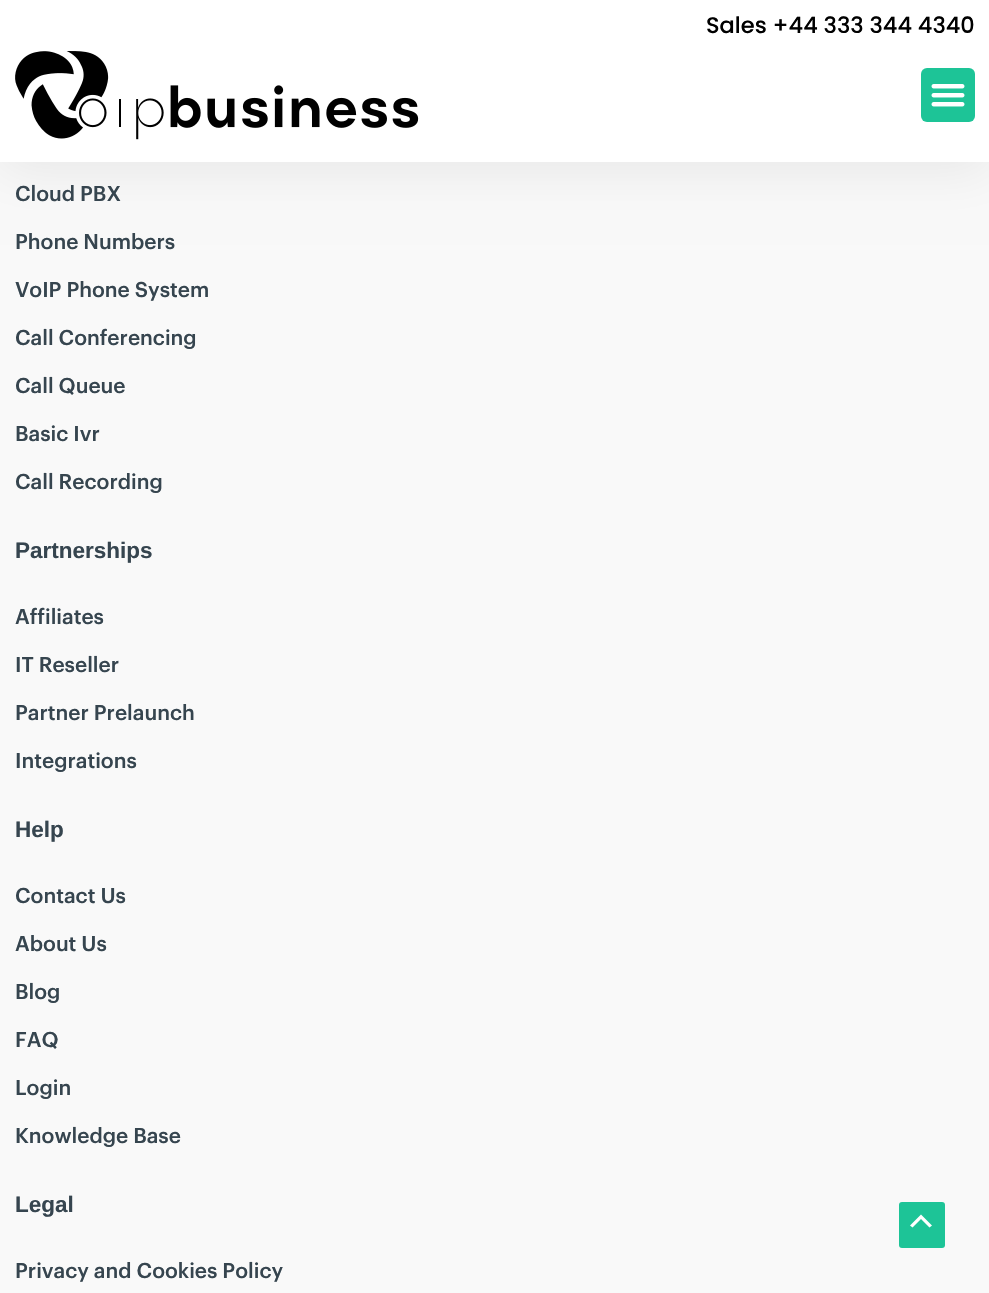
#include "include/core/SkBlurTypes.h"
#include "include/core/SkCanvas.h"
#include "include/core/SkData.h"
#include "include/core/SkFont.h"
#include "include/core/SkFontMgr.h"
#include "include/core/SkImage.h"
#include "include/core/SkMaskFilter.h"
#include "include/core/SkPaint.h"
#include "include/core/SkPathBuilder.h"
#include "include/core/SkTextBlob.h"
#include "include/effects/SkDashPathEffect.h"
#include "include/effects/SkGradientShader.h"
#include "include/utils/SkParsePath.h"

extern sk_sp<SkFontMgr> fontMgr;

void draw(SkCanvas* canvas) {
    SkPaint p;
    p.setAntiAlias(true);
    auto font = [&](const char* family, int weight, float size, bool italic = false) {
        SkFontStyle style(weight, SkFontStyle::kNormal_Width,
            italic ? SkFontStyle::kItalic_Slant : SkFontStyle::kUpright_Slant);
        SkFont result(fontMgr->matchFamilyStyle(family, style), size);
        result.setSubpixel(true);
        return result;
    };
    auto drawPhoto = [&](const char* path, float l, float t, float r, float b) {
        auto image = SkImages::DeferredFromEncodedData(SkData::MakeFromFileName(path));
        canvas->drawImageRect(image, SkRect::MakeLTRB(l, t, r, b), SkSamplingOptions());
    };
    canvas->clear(0xFFF9F9F9);
    p.setColor(0x12000000);
    p.setMaskFilter(SkMaskFilter::MakeBlur(kNormal_SkBlurStyle, 25));
    canvas->drawRect(SkRect::MakeLTRB(-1, 5, 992, 170), p);
    p.setMaskFilter(nullptr);
    p.setColor(0xFFFFFFFF);
    canvas->drawRect(SkRect::MakeLTRB(0, 0, 989, 162), p);
    auto font1 = font("Poppins", 500, 22.5f);
    p.setColor(0xFF000000);
    canvas->drawString("Sales +44 333 344 4340", 706, 33, font1, p);
    drawPhoto("media/1.png", 15, 51, 419, 140);
    p.setColor(0xFF1DC497);
    canvas->drawRoundRect(SkRect::MakeLTRB(921, 68, 975, 122), 6, 6, p);
    drawPhoto("media/2.png", 931, 84, 965, 107);
    auto font2 = font("Graphik", 500, 21);
    p.setColor(0xFF36454F);
    {
        const struct { const char* s; float x, y; } items[] = {
            {"Cloud PBX", 15, 201},
            {"Phone Numbers", 15, 249},
            {"VoIP Phone System", 15, 297},
            {"Call Conferencing", 15, 345},
            {"Call Queue", 15, 393},
            {"Basic Ivr", 15, 441},
            {"Call Recording", 15, 489},
        };
        for (auto [s, x, y] : items) {
            canvas->drawString(s, x, y, font2, p);
        }
    }
    auto font3 = font("Liberation Sans", 700, 22.5f);
    canvas->drawString("Partnerships", 15, 558, font3, p);
    {
        const struct { const char* s; float x, y; } items[] = {
            {"Affiliates", 15, 624},
            {"IT Reseller", 15, 672},
            {"Partner Prelaunch", 15, 720},
            {"Integrations", 15, 768},
        };
        for (auto [s, x, y] : items) {
            canvas->drawString(s, x, y, font2, p);
        }
    }
    canvas->drawString("Help", 15, 837, font3, p);
    {
        const struct { const char* s; float x, y; } items[] = {
            {"Contact Us", 15, 903},
            {"About Us", 15, 951},
            {"Blog", 15, 999},
            {"FAQ", 15, 1047},
            {"Login", 15, 1095},
            {"Knowledge Base", 15, 1143},
        };
        for (auto [s, x, y] : items) {
            canvas->drawString(s, x, y, font2, p);
        }
    }
    canvas->drawString("Legal", 15, 1212, font3, p);
    canvas->drawString("Privacy and Cookies Policy", 15, 1278, font2, p);
    p.setColor(0xFF1DC497);
    canvas->drawRoundRect(SkRect::MakeLTRB(899, 1202, 945, 1248), 3, 3, p);
    p.setColor(0xFFFFFFFF);
    canvas->drawPath(SkPathBuilder().moveTo(932, 1225.5f).lineTo(921, 1214.5f).lineTo(910, 1225.5f).lineTo(912.5f, 1227.5f).lineTo(921, 1219).lineTo(929.5f, 1227.5f).close().detach(), p);
}
